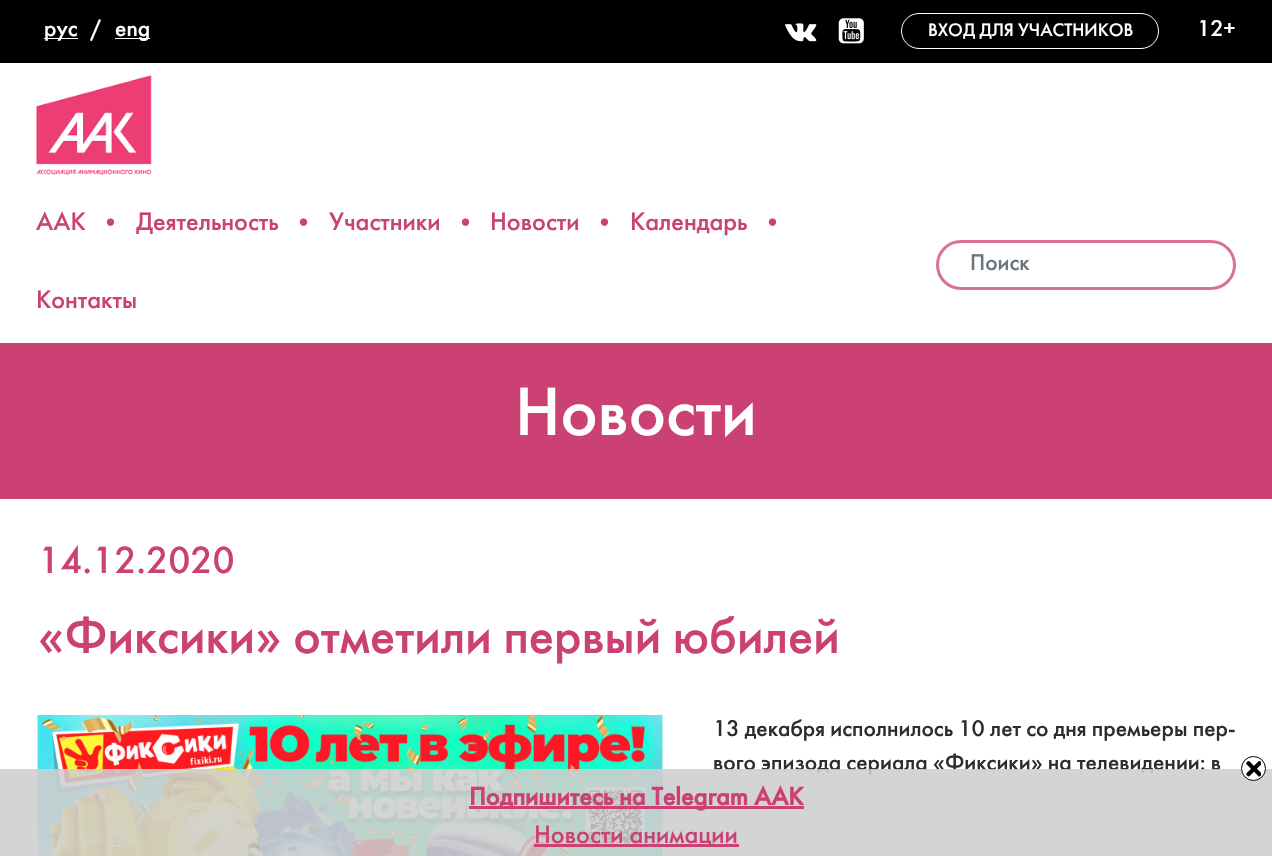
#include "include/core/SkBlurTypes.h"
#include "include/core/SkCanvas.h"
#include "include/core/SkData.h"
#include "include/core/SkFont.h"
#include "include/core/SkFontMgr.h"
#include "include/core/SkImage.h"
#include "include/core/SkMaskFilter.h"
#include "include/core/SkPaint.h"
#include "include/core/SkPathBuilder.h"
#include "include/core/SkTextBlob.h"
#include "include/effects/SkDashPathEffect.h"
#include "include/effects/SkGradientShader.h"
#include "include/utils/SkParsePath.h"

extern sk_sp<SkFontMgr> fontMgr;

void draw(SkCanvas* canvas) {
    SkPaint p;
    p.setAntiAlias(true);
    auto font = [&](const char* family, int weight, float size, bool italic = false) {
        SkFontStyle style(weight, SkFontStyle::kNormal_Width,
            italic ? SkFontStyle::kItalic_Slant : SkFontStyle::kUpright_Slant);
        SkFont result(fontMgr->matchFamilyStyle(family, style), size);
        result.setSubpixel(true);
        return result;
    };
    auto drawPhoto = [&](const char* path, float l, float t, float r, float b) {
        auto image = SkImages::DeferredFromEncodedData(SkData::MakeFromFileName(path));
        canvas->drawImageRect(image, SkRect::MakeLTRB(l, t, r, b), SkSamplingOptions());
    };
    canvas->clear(0xFFFFFFFF);
    p.setColor(0xFF000000);
    canvas->drawRect(SkRect::MakeLTRB(0, 0, 1272, 63), p);
    p.setColor(0xFFFFFFFF);
    canvas->drawRect(SkRect::MakeLTRB(44, 38, 78, 39), p);
    auto font1 = font("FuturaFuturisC", 400, 22.5f);
    canvas->drawString("рус", 44, 36, font1, p);
    canvas->drawString("/", 90, 36, font1, p);
    canvas->drawRect(SkRect::MakeLTRB(115, 38, 150, 39), p);
    canvas->drawString("eng", 115, 36, font1, p);
    drawPhoto("media/1.png", 785, 23, 817, 42);
    drawPhoto("media/2.png", 838, 18, 864, 44);
    p.setStyle(SkPaint::kStroke_Style);
    p.setStrokeWidth(1);
    canvas->drawRoundRect(SkRect::MakeLTRB(901.5f, 13.5f, 1158.5f, 48.5f), 17.5f, 17.5f, p);
    auto font2 = font("FuturaFuturisC", 400, 18);
    p.setStyle(SkPaint::kFill_Style);
    canvas->drawString("ВХОД ДЛЯ УЧАСТНИКОВ", 928, 36, font2, p);
    canvas->drawString("12+", 1197, 36, font1, p);
    drawPhoto("media/3.png", 36, 75, 152, 175);
    auto font3 = font("FuturaFuturisC", 400, 25);
    p.setColor(0xFFCB4173);
    {
        const struct { const char* s; float x, y; } items[] = {
            {"ААК", 36, 230},
            {"•", 102, 231},
            {"Деятельность", 136, 230},
            {"•", 295, 231},
            {"Участники", 329, 230},
            {"•", 457, 231},
            {"Новости", 490, 230},
            {"•", 596, 231},
            {"Календарь", 630, 230},
            {"•", 764, 231},
            {"Контакты", 36, 308},
        };
        for (auto [s, x, y] : items) {
            canvas->drawString(s, x, y, font3, p);
        }
    }
    p.setStyle(SkPaint::kStroke_Style);
    p.setStrokeWidth(3);
    p.setColor(0xFFDA7196);
    canvas->drawRoundRect(SkRect::MakeLTRB(937.5f, 241.5f, 1234.5f, 288.5f), 23.5f, 23.5f, p);
    p.setStyle(SkPaint::kFill_Style);
    p.setColor(0xFF6C757D);
    canvas->drawString("Поиск", 970, 270, font1, p);
    p.setColor(0xFFCB4174);
    canvas->drawRect(SkRect::MakeLTRB(0, 343, 1272, 499), p);
    auto font4 = font("FuturaFuturisC", 400, 67.5f);
    p.setColor(0xFFFFFFFF);
    canvas->drawString("Новости", 515, 435, font4, p);
    auto font5 = font("FuturaFuturisC", 400, 37.5f);
    p.setColor(0xFFCB4173);
    canvas->drawString("14.12.2020", 38, 573, font5, p);
    auto font6 = font("FuturaFuturisC", 400, 50);
    canvas->drawString("«Фиксики» отметили первый юбилей", 38, 653, font6, p);
    drawPhoto("media/4.png", 37, 715, 663, 856);
    p.setColor(0xFF2D2D2D);
    canvas->drawString("13 декабря исполнилось 10 лет со дня премьеры пер-", 713, 736, font1, p);
    canvas->drawString("вого эпизода сериала «Фиксики» на телевидении: в", 713, 770, font1, p);
    p.setColor(0xE0CECECE);
    canvas->drawRect(SkRect::MakeLTRB(0, 769, 1272, 856), p);
    p.setColor(0xFFFFFFFF);
    canvas->drawCircle(1253.5f, 768.5f, 12.5f, p);
    drawPhoto("media/5.png", 1246, 761, 1261, 777);
    p.setStyle(SkPaint::kStroke_Style);
    p.setStrokeWidth(1);
    p.setColor(0xFF000000);
    canvas->drawCircle(1253.5f, 768.5f, 12, p);
    p.setStyle(SkPaint::kFill_Style);
    p.setColor(0xFFCB4173);
    canvas->drawRect(SkRect::MakeLTRB(469, 806, 804, 809), p);
    auto font7 = font("FuturaFuturisC", 700, 25);
    canvas->drawString("Подпишитесь на Telegram AAK", 469, 805, font7, p);
    canvas->drawRect(SkRect::MakeLTRB(534, 844, 739, 847), p);
    canvas->drawString("Новости анимации", 534, 843, font3, p);
}
